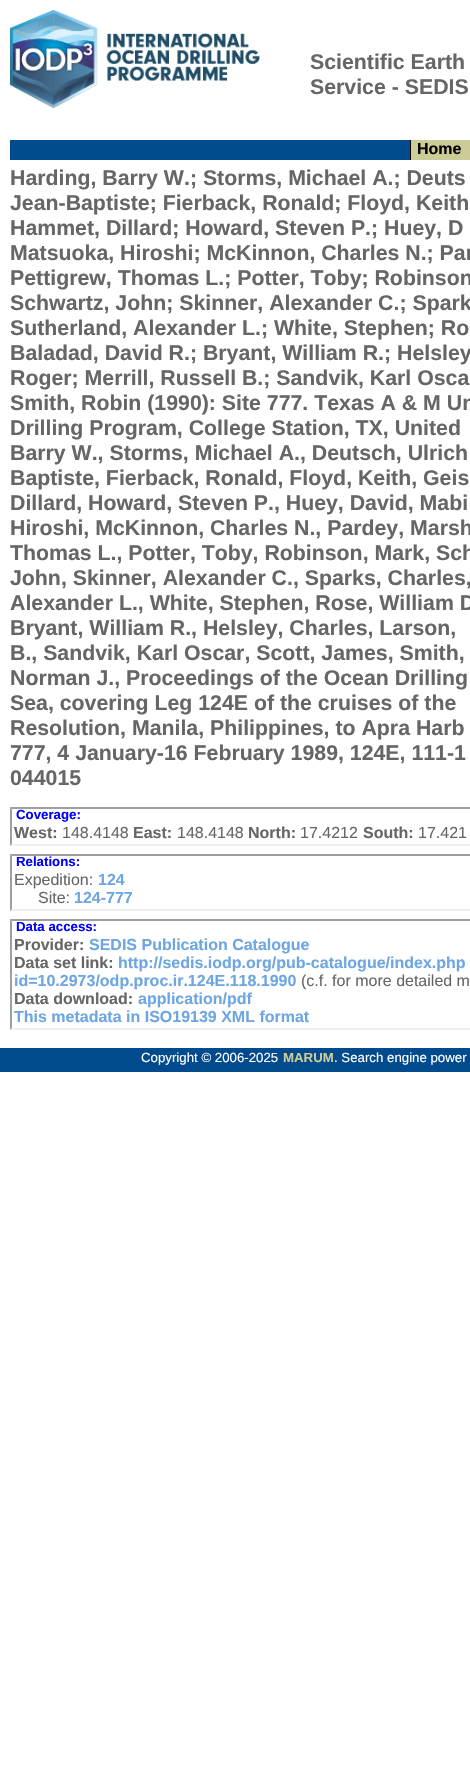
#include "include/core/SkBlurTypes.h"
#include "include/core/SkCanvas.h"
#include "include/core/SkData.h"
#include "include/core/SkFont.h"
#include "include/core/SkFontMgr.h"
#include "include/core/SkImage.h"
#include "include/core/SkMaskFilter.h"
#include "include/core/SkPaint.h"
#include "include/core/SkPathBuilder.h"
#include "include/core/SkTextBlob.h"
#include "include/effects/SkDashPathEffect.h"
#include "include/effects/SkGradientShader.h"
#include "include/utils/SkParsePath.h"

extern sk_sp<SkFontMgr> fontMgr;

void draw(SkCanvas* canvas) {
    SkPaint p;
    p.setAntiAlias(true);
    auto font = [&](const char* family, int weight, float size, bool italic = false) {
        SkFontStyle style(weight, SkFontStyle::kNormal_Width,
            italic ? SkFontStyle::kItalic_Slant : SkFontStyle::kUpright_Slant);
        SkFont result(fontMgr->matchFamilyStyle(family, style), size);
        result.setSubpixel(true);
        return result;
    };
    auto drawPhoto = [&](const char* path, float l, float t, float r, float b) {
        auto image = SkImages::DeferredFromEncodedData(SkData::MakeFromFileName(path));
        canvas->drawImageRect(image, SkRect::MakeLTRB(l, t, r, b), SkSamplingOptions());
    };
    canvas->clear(0xFFFFFFFF);
    drawPhoto("media/1.png", 10, 10, 260, 108);
    auto font1 = font("Liberation Sans", 700, 21.3f);
    p.setColor(0xFF666666);
    canvas->drawString("Scientific Earth", 310, 69, font1, p);
    canvas->drawString("Service - SEDIS", 310, 94, font1, p);
    {
        const struct { float l, t, r, b; SkColor color; } items[] = {
            {10, 140, 410, 160, 0xFF004A8D},
            {411, 140, 470, 160, 0xFFCCCC99},
            {410, 140, 411, 160, 0xFF000000},
        };
        for (auto [l, t, r, b, color] : items) {
            p.setColor(color);
            canvas->drawRect(SkRect::MakeLTRB(l, t, r, b), p);
        }
    }
    auto font2 = font("Liberation Sans", 700, 16);
    canvas->drawString("Home", 417, 154, font2, p);
    p.setColor(0xFF666666);
    {
        const struct { const char* s; float x, y; } items[] = {
            {"Harding, Barry W.; Storms, Michael A.; Deuts", 10, 185},
            {"Jean-Baptiste; Fierback, Ronald; Floyd, Keith", 10, 210},
            {"Hammet, Dillard; Howard, Steven P.; Huey, D", 10, 235},
            {"Matsuoka, Hiroshi; McKinnon, Charles N.; Par", 10, 260},
            {"Pettigrew, Thomas L.; Potter, Toby; Robinson", 10, 285},
            {"Schwartz, John; Skinner, Alexander C.; Spark", 10, 310},
            {"Sutherland, Alexander L.; White, Stephen; Ro", 10, 335},
            {"Baladad, David R.; Bryant, William R.; Helsley", 10, 360},
            {"Roger; Merrill, Russell B.; Sandvik, Karl Osca", 10, 385},
            {"Smith, Robin (1990): Site 777. Texas A & M Un", 10, 410},
            {"Drilling Program, College Station, TX, United", 10, 435},
            {"Barry W., Storms, Michael A., Deutsch, Ulrich", 10, 460},
            {"Baptiste, Fierback, Ronald, Floyd, Keith, Geis", 10, 485},
            {"Dillard, Howard, Steven P., Huey, David, Mabi", 10, 510},
            {"Hiroshi, McKinnon, Charles N., Pardey, Marsh", 10, 535},
            {"Thomas L., Potter, Toby, Robinson, Mark, Sch", 10, 560},
            {"John, Skinner, Alexander C., Sparks, Charles,", 10, 585},
            {"Alexander L., White, Stephen, Rose, William D", 10, 610},
            {"Bryant, William R., Helsley, Charles, Larson,", 10, 635},
            {"B., Sandvik, Karl Oscar, Scott, James, Smith,", 10, 660},
            {"Norman J., Proceedings of the Ocean Drilling", 10, 685},
            {"Sea, covering Leg 124E of the cruises of the", 10, 710},
            {"Resolution, Manila, Philippines, to Apra Harb", 10, 735},
            {"777, 4 January-16 February 1989, 124E, 111-1", 10, 760},
            {"044015", 10, 785},
        };
        for (auto [s, x, y] : items) {
            canvas->drawString(s, x, y, font1, p);
        }
    }
    p.setColor(0xFF9F9F9F);
    canvas->drawPath(SkPathBuilder().moveTo(10, 807).lineTo(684, 807).lineTo(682, 809).lineTo(12, 809).close().detach(), p);
    p.setColor(0xFFEFEFEF);
    canvas->drawPath(SkPathBuilder().moveTo(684, 846).lineTo(10, 846).lineTo(12, 844).lineTo(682, 844).close().detach(), p);
    p.setColor(0xFF9F9F9F);
    canvas->drawPath(SkPathBuilder().moveTo(10, 846).lineTo(10, 807).lineTo(12, 809).lineTo(12, 844).close().detach(), p);
    auto font3 = font("Liberation Sans", 700, 13.25f);
    p.setColor(0xFF0000FF);
    canvas->drawString("Coverage:", 16, 819, font3, p);
    p.setColor(0xFF666666);
    canvas->drawString("West:", 14, 838, font2, p);
    auto font4 = font("Liberation Sans", 400, 16);
    canvas->drawString("148.4148", 62, 838, font4, p);
    canvas->drawString("East:", 133, 838, font2, p);
    canvas->drawString("148.4148", 177, 838, font4, p);
    canvas->drawString("North:", 248, 838, font2, p);
    canvas->drawString("17.4212", 300, 838, font4, p);
    canvas->drawString("South:", 363, 838, font2, p);
    canvas->drawString("17.421", 418, 838, font4, p);
    p.setColor(0xFF9F9F9F);
    canvas->drawPath(SkPathBuilder().moveTo(10, 854).lineTo(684, 854).lineTo(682, 856).lineTo(12, 856).close().detach(), p);
    p.setColor(0xFFEFEFEF);
    canvas->drawPath(SkPathBuilder().moveTo(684, 911).lineTo(10, 911).lineTo(12, 909).lineTo(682, 909).close().detach(), p);
    p.setColor(0xFF9F9F9F);
    canvas->drawPath(SkPathBuilder().moveTo(10, 911).lineTo(10, 854).lineTo(12, 856).lineTo(12, 909).close().detach(), p);
    p.setColor(0xFF0000FF);
    canvas->drawString("Relations:", 16, 866, font3, p);
    p.setColor(0xFF666666);
    canvas->drawString("Expedition:", 14, 885, font4, p);
    p.setColor(0xFF6DA6E2);
    canvas->drawString("124", 98, 885, font2, p);
    p.setColor(0xFF666666);
    canvas->drawString("Site:", 38, 903, font4, p);
    p.setColor(0xFF6DA6E2);
    canvas->drawString("124-777", 74, 903, font2, p);
    p.setColor(0xFF9F9F9F);
    canvas->drawPath(SkPathBuilder().moveTo(10, 919).lineTo(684, 919).lineTo(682, 921).lineTo(12, 921).close().detach(), p);
    p.setColor(0xFFEFEFEF);
    canvas->drawPath(SkPathBuilder().moveTo(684, 1030).lineTo(10, 1030).lineTo(12, 1028).lineTo(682, 1028).close().detach(), p);
    p.setColor(0xFF9F9F9F);
    canvas->drawPath(SkPathBuilder().moveTo(10, 1030).lineTo(10, 919).lineTo(12, 921).lineTo(12, 1028).close().detach(), p);
    p.setColor(0xFF0000FF);
    canvas->drawString("Data access:", 16, 931, font3, p);
    p.setColor(0xFF666666);
    canvas->drawString("Provider:", 14, 950, font2, p);
    p.setColor(0xFF6DA6E2);
    canvas->drawString("SEDIS Publication Catalogue", 89, 950, font2, p);
    p.setColor(0xFF666666);
    canvas->drawString("Data set link:", 14, 968, font2, p);
    p.setColor(0xFF6DA6E2);
    canvas->drawString("http://sedis.iodp.org/pub-catalogue/index.php", 118, 968, font2, p);
    canvas->drawString("id=10.2973/odp.proc.ir.124E.118.1990", 14, 986, font2, p);
    p.setColor(0xFF666666);
    canvas->drawString("(c.f. for more detailed m", 301, 986, font4, p);
    canvas->drawString("Data download:", 14, 1004, font2, p);
    p.setColor(0xFF6DA6E2);
    canvas->drawString("application/pdf", 138, 1004, font2, p);
    canvas->drawString("This metadata in ISO19139 XML format", 14, 1022, font2, p);
    p.setColor(0xFF004A8D);
    canvas->drawRect(SkRect::MakeLTRB(0, 1048, 470, 1072), p);
    auto font5 = font("Liberation Sans", 400, 13.25f);
    p.setColor(0xFFFFFFFF);
    canvas->drawString("Copyright © 2006-2025", 141, 1062, font5, p);
    p.setColor(0xFFCCCC99);
    canvas->drawString("MARUM", 283, 1062, font3, p);
    p.setColor(0xFFFFFFFF);
    canvas->drawString(". Search engine power", 334, 1062, font5, p);
}
